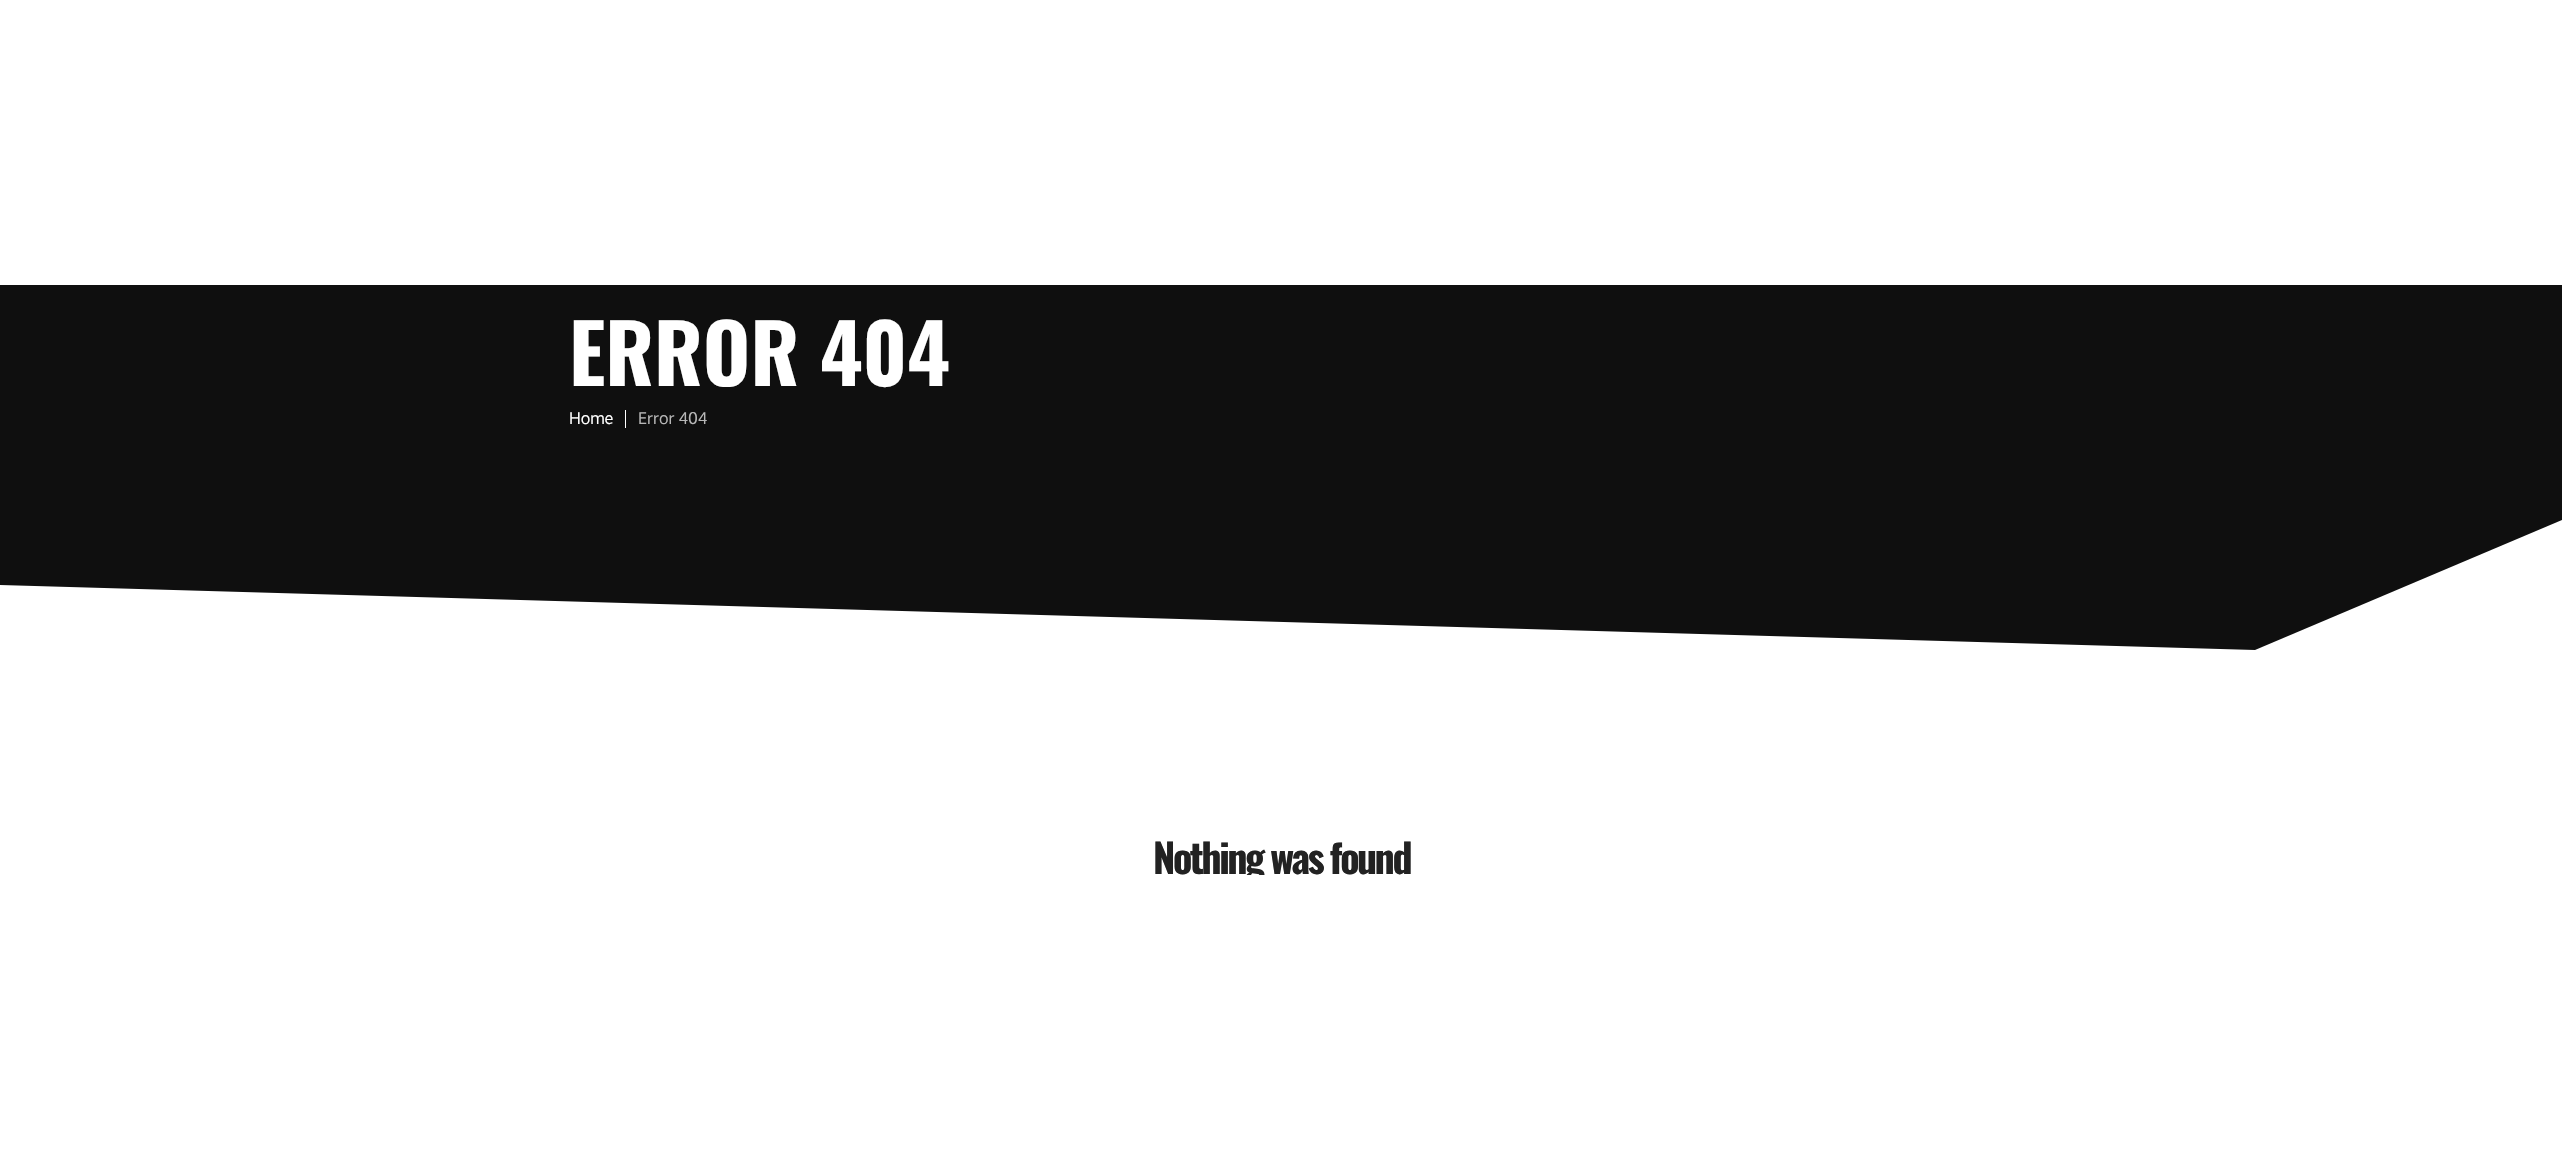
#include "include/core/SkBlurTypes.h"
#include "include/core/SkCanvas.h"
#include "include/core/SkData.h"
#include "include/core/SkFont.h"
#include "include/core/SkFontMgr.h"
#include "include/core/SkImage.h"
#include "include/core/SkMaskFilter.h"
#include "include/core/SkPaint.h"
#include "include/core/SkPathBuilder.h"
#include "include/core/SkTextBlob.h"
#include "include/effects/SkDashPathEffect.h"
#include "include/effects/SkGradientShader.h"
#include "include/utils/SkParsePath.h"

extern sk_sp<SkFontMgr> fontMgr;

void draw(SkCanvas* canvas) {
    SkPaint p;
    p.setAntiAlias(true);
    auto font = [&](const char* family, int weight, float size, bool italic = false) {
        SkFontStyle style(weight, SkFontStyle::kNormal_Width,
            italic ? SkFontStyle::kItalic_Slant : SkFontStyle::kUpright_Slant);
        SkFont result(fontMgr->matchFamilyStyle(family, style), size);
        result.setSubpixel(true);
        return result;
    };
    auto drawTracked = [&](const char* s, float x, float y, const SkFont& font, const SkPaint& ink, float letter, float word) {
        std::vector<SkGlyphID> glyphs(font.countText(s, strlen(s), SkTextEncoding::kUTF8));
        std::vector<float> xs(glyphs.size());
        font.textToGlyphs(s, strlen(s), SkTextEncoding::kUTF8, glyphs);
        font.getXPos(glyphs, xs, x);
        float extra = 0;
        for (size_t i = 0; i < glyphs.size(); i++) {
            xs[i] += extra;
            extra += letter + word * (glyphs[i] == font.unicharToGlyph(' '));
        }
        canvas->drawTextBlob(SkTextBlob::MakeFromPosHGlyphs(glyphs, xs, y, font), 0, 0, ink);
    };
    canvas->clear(0xFFFFFFFF);
    p.setColor(0xFF0F0F0F);
    canvas->drawPath(SkPathBuilder().moveTo(0, 0).lineTo(0, 585).lineTo(2255, 650).lineTo(2562, 520).lineTo(2562, 0).close().detach(), p);
    p.setColor(0xFFFFFFFF);
    canvas->drawRect(SkRect::MakeLTRB(0, 0, 2562, 285), p);
    auto font1 = font("Oswald", 700, 40);
    p.setColor(0xFF222222);
    drawTracked("Nothing was found", 1153, 874, font1, p, -2.5f, 0);
    p.setColor(0xFFFFFFFF);
    canvas->drawRect(SkRect::MakeLTRB(1245, 875, 1265, 882), p);
    auto font2 = font("Oswald", 700, 81.25f);
    canvas->drawString("ERROR 404", 569, 386, font2, p);
    auto font3 = font("Oxygen", 400, 16.25f);
    canvas->drawString("Home", 569, 424, font3, p);
    canvas->drawRect(SkRect::MakeLTRB(625, 410, 626, 428), p);
    p.setColor(0xFFB7B7B7);
    canvas->drawString("Error 404", 638, 424, font3, p);
}
